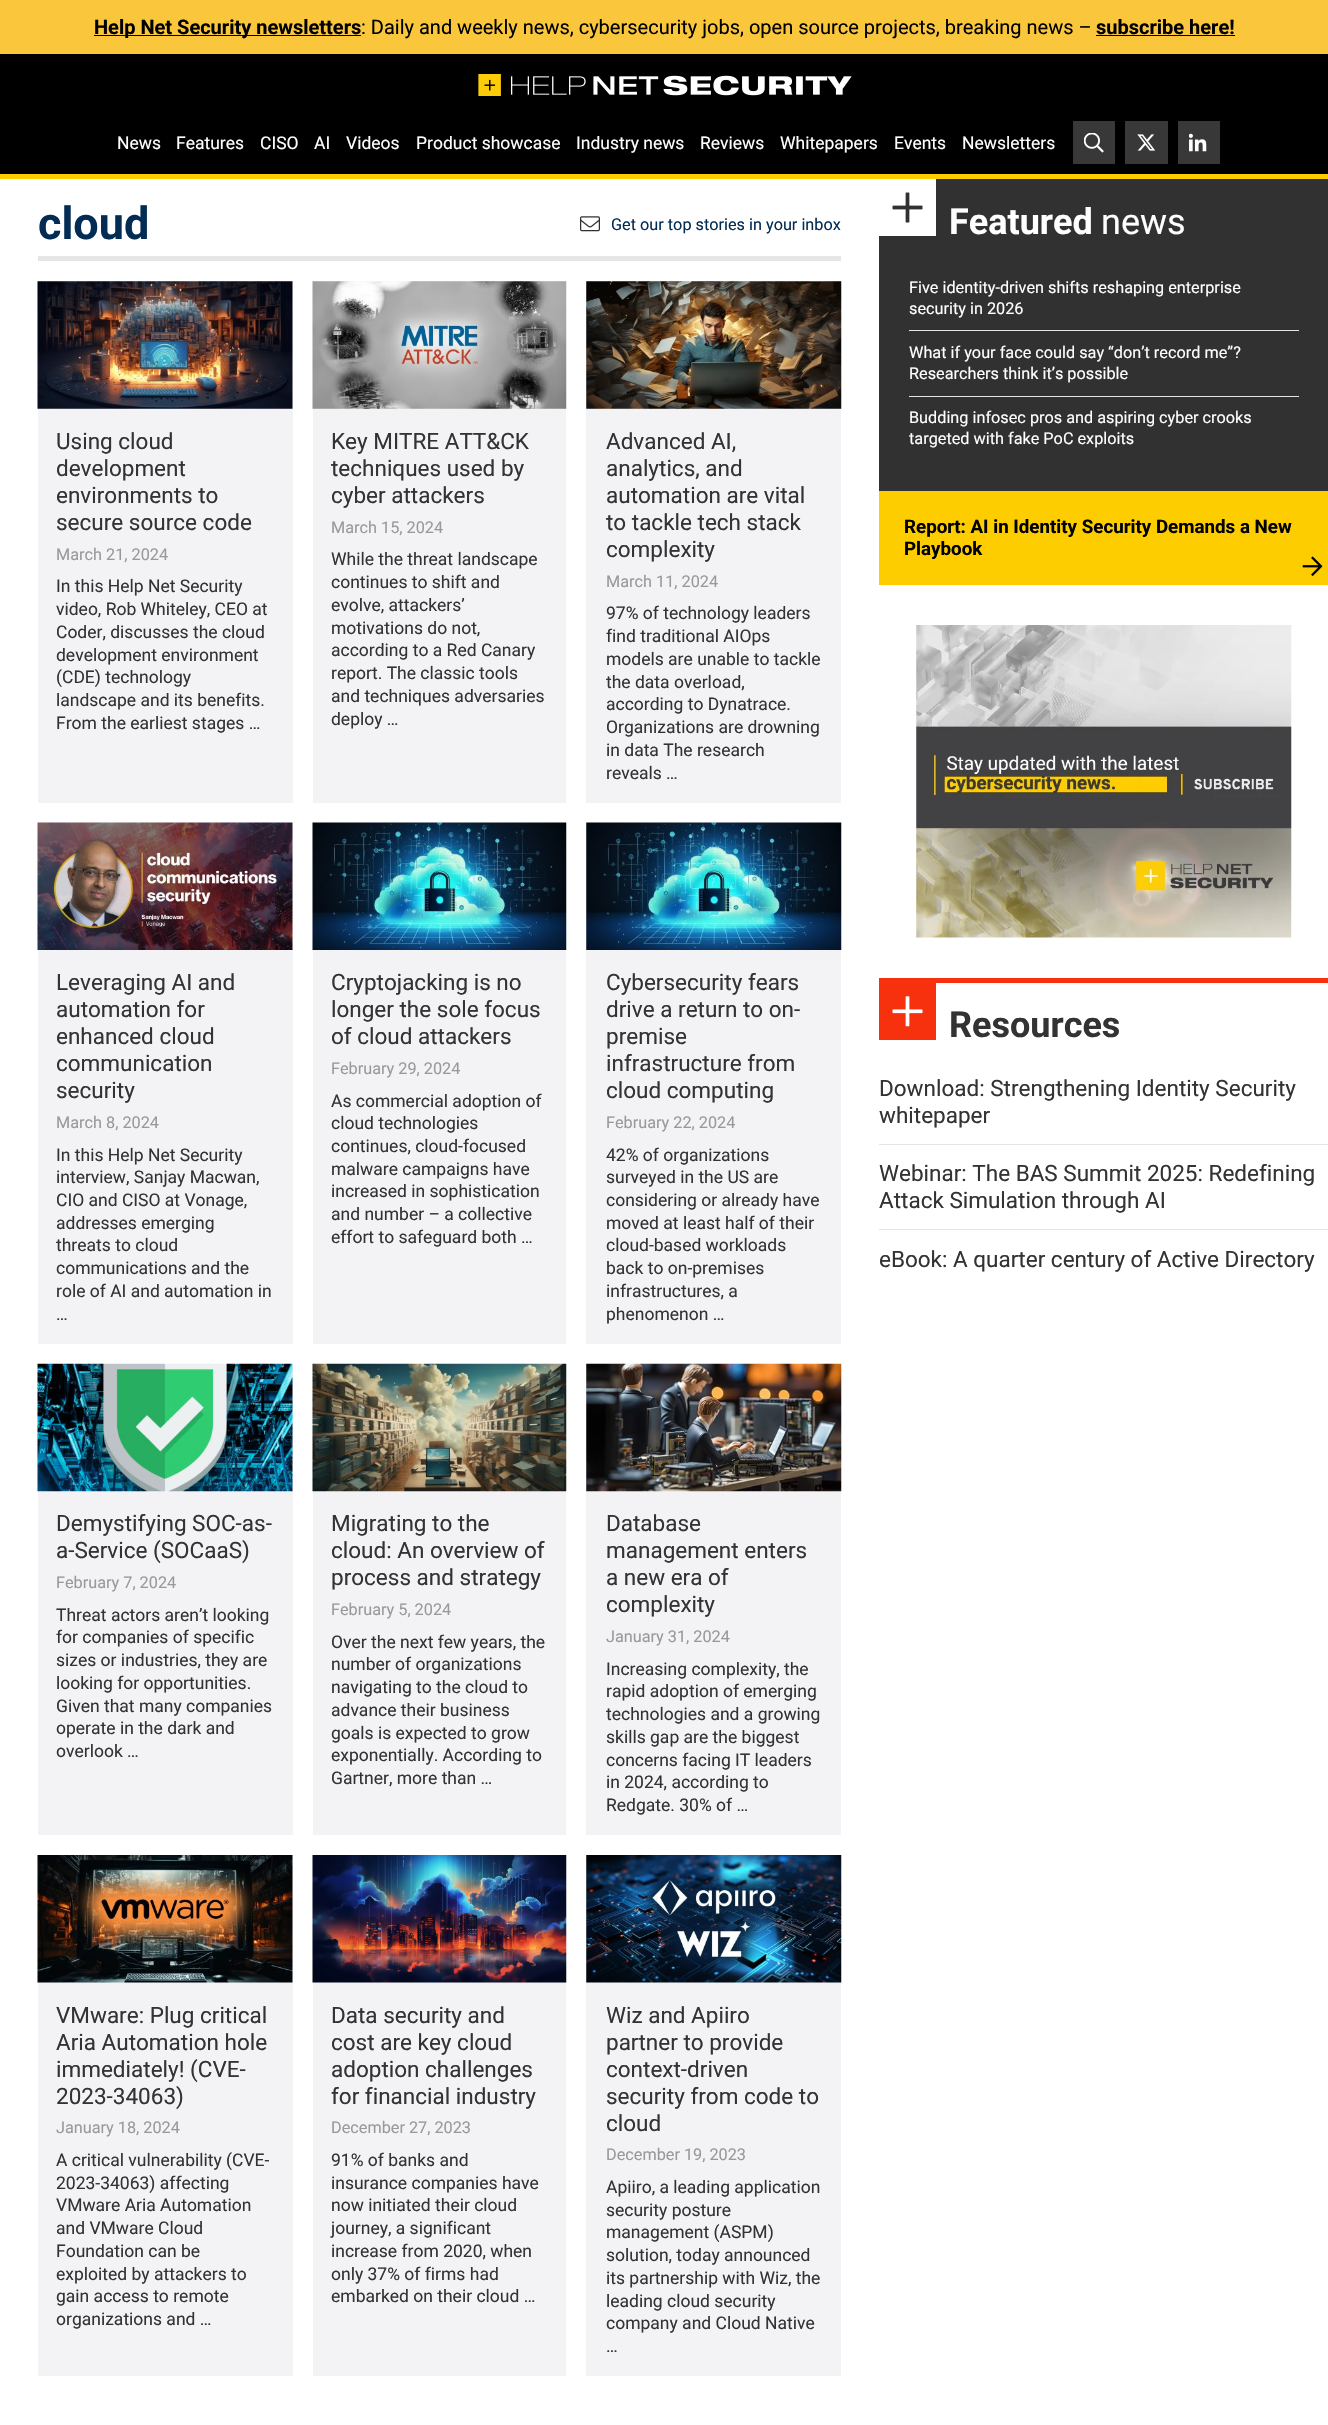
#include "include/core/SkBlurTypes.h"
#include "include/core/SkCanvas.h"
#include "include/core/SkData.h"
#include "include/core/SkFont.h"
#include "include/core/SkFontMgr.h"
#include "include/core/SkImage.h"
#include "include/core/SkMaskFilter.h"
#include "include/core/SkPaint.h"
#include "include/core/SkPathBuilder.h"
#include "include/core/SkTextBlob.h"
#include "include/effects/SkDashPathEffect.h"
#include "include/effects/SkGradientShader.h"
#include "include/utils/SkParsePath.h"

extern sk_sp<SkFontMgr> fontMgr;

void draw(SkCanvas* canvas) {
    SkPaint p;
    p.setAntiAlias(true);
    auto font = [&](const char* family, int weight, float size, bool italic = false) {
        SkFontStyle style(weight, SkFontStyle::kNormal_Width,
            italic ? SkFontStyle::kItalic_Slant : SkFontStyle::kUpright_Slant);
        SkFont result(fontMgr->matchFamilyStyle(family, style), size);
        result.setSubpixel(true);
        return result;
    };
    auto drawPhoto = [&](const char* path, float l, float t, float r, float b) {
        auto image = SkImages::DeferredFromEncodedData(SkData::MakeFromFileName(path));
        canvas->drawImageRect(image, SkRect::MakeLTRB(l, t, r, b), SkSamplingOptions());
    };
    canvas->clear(0xFFFFFFFF);
    p.setColor(0xFFF9C63C);
    canvas->drawRect(SkRect::MakeLTRB(0, 0, 1328, 54), p);
    p.setColor(0xFF000000);
    canvas->drawRect(SkRect::MakeLTRB(94, 35, 361, 36), p);
    auto font1 = font("Roboto", 700, 20);
    canvas->drawString("Help Net Security newsletters", 94, 34, font1, p);
    auto font2 = font("Roboto", 400, 20);
    canvas->drawString(": Daily and weekly news, cybersecurity jobs, open source projects, breaking news –", 361, 34, font2, p);
    canvas->drawString("subscribe here!", 1096, 34, font1, p);
    canvas->drawRect(SkRect::MakeLTRB(1096, 35, 1235, 36), p);
    canvas->drawRect(SkRect::MakeLTRB(0, 54, 1328, 174), p);
    drawPhoto("media/1.png", 478, 74, 852, 96);
    auto font3 = font("Roboto", 400, 17.5f);
    p.setColor(0xFFFFFFFF);
    {
        const struct { const char* s; float x, y; } items[] = {
            {"News", 117, 149},
            {"Features", 176, 149},
            {"CISO", 260, 149},
            {"AI", 314, 149},
            {"Videos", 346, 149},
            {"Product showcase", 416, 149},
            {"Industry news", 576, 149},
            {"Reviews", 700, 149},
            {"Whitepapers", 780, 149},
            {"Events", 894, 149},
            {"Newsletters", 962, 149},
        };
        for (auto [s, x, y] : items) {
            canvas->drawString(s, x, y, font3, p);
        }
    }
    p.setColor(0xFF393838);
    canvas->drawRect(SkRect::MakeLTRB(1073, 121, 1115, 164), p);
    drawPhoto("media/2.png", 1084, 133, 1104, 153);
    canvas->drawRect(SkRect::MakeLTRB(1125, 121, 1168, 164), p);
    drawPhoto("media/3.png", 1137, 134, 1156, 151);
    canvas->drawRect(SkRect::MakeLTRB(1178, 121, 1220, 164), p);
    drawPhoto("media/4.png", 1189, 133, 1207, 152);
    p.setColor(0xFFFDCD00);
    canvas->drawRect(SkRect::MakeLTRB(0, 174, 1328, 179), p);
    p.setColor(0xFFE5E5E5);
    canvas->drawRect(SkRect::MakeLTRB(38, 256, 841, 261), p);
    auto font4 = font("Roboto", 700, 45);
    p.setColor(0xFF032C55);
    canvas->drawString("cloud", 38, 239, font4, p);
    drawPhoto("media/5.png", 580, 216, 600, 232);
    auto font5 = font("Roboto", 400, 16.25f);
    canvas->drawString("Get our top stories in your inbox", 611, 230, font5, p);
    p.setColor(0xFFF3F3F6);
    canvas->drawRect(SkRect::MakeLTRB(38, 281, 293, 803), p);
    drawPhoto("media/6.png", 37, 281, 293, 409);
    auto font6 = font("Roboto", 400, 22.5f);
    p.setColor(0xFF333333);
    {
        const struct { const char* s; float x, y; } items[] = {
            {"Using cloud", 56, 449},
            {"development", 56, 476},
            {"environments to", 56, 503},
            {"secure source code", 56, 530},
        };
        for (auto [s, x, y] : items) {
            canvas->drawString(s, x, y, font6, p);
        }
    }
    p.setColor(0xFF999999);
    canvas->drawString("March 21, 2024", 56, 560, font5, p);
    p.setColor(0xFF333333);
    {
        const struct { const char* s; float x, y; } items[] = {
            {"In this Help Net Security", 56, 592},
            {"video, Rob Whiteley, CEO at", 56, 615},
            {"Coder, discusses the cloud", 56, 638},
            {"development environment", 56, 661},
            {"(CDE) technology", 56, 683},
            {"landscape and its benefits.", 56, 706},
            {"From the earliest stages …", 56, 729},
        };
        for (auto [s, x, y] : items) {
            canvas->drawString(s, x, y, font3, p);
        }
    }
    p.setColor(0xFFF3F3F6);
    canvas->drawRect(SkRect::MakeLTRB(313, 281, 566, 803), p);
    drawPhoto("media/7.png", 312, 281, 567, 409);
    p.setColor(0xFF333333);
    {
        const struct { const char* s; float x, y; } items[] = {
            {"Key MITRE ATT&CK", 331, 449},
            {"techniques used by", 331, 476},
            {"cyber attackers", 331, 503},
        };
        for (auto [s, x, y] : items) {
            canvas->drawString(s, x, y, font6, p);
        }
    }
    p.setColor(0xFF999999);
    canvas->drawString("March 15, 2024", 331, 533, font5, p);
    p.setColor(0xFF333333);
    {
        const struct { const char* s; float x, y; } items[] = {
            {"While the threat landscape", 331, 565},
            {"continues to shift and", 331, 588},
            {"evolve, attackers’", 331, 611},
            {"motivations do not,", 331, 634},
            {"according to a Red Canary", 331, 656},
            {"report. The classic tools", 331, 679},
            {"and techniques adversaries", 331, 702},
            {"deploy …", 331, 725},
        };
        for (auto [s, x, y] : items) {
            canvas->drawString(s, x, y, font3, p);
        }
    }
    p.setColor(0xFFF3F3F6);
    canvas->drawRect(SkRect::MakeLTRB(586, 281, 841, 803), p);
    drawPhoto("media/8.png", 586, 281, 842, 409);
    p.setColor(0xFF333333);
    {
        const struct { const char* s; float x, y; } items[] = {
            {"Advanced AI,", 606, 449},
            {"analytics, and", 606, 476},
            {"automation are vital", 606, 503},
            {"to tackle tech stack", 606, 530},
            {"complexity", 606, 557},
        };
        for (auto [s, x, y] : items) {
            canvas->drawString(s, x, y, font6, p);
        }
    }
    p.setColor(0xFF999999);
    canvas->drawString("March 11, 2024", 606, 587, font5, p);
    p.setColor(0xFF333333);
    {
        const struct { const char* s; float x, y; } items[] = {
            {"97% of technology leaders", 606, 619},
            {"find traditional AIOps", 606, 642},
            {"models are unable to tackle", 606, 665},
            {"the data overload,", 606, 688},
            {"according to Dynatrace.", 606, 710},
            {"Organizations are drowning", 606, 733},
            {"in data The research", 606, 756},
            {"reveals …", 606, 779},
        };
        for (auto [s, x, y] : items) {
            canvas->drawString(s, x, y, font3, p);
        }
    }
    p.setColor(0xFFF3F3F6);
    canvas->drawRect(SkRect::MakeLTRB(38, 823, 293, 1344), p);
    drawPhoto("media/9.png", 37, 822, 293, 950);
    p.setColor(0xFF333333);
    {
        const struct { const char* s; float x, y; } items[] = {
            {"Leveraging AI and", 56, 990},
            {"automation for", 56, 1017},
            {"enhanced cloud", 56, 1044},
            {"communication", 56, 1071},
            {"security", 56, 1098},
        };
        for (auto [s, x, y] : items) {
            canvas->drawString(s, x, y, font6, p);
        }
    }
    p.setColor(0xFF999999);
    canvas->drawString("March 8, 2024", 56, 1128, font5, p);
    p.setColor(0xFF333333);
    {
        const struct { const char* s; float x, y; } items[] = {
            {"In this Help Net Security", 56, 1161},
            {"interview, Sanjay Macwan,", 56, 1183},
            {"CIO and CISO at Vonage,", 56, 1206},
            {"addresses emerging", 56, 1229},
            {"threats to cloud", 56, 1251},
            {"communications and the", 56, 1274},
            {"role of AI and automation in", 56, 1297},
            {"…", 56, 1320},
        };
        for (auto [s, x, y] : items) {
            canvas->drawString(s, x, y, font3, p);
        }
    }
    p.setColor(0xFFF3F3F6);
    canvas->drawRect(SkRect::MakeLTRB(313, 950, 566, 1344), p);
    drawPhoto("media/10.png", 312, 822, 567, 950);
    p.setColor(0xFF333333);
    {
        const struct { const char* s; float x, y; } items[] = {
            {"Cryptojacking is no", 331, 990},
            {"longer the sole focus", 331, 1017},
            {"of cloud attackers", 331, 1044},
        };
        for (auto [s, x, y] : items) {
            canvas->drawString(s, x, y, font6, p);
        }
    }
    p.setColor(0xFF999999);
    canvas->drawString("February 29, 2024", 331, 1074, font5, p);
    p.setColor(0xFF333333);
    {
        const struct { const char* s; float x, y; } items[] = {
            {"As commercial adoption of", 331, 1107},
            {"cloud technologies", 331, 1129},
            {"continues, cloud-focused", 331, 1152},
            {"malware campaigns have", 331, 1175},
            {"increased in sophistication", 331, 1197},
            {"and number – a collective", 331, 1220},
            {"effort to safeguard both …", 331, 1243},
        };
        for (auto [s, x, y] : items) {
            canvas->drawString(s, x, y, font3, p);
        }
    }
    p.setColor(0xFFF3F3F6);
    canvas->drawRect(SkRect::MakeLTRB(586, 823, 841, 1344), p);
    drawPhoto("media/11.png", 586, 822, 842, 950);
    p.setColor(0xFF333333);
    {
        const struct { const char* s; float x, y; } items[] = {
            {"Cybersecurity fears", 606, 990},
            {"drive a return to on-", 606, 1017},
            {"premise", 606, 1044},
            {"infrastructure from", 606, 1071},
            {"cloud computing", 606, 1098},
        };
        for (auto [s, x, y] : items) {
            canvas->drawString(s, x, y, font6, p);
        }
    }
    p.setColor(0xFF999999);
    canvas->drawString("February 22, 2024", 606, 1128, font5, p);
    p.setColor(0xFF333333);
    {
        const struct { const char* s; float x, y; } items[] = {
            {"42% of organizations", 606, 1161},
            {"surveyed in the US are", 606, 1183},
            {"considering or already have", 606, 1206},
            {"moved at least half of their", 606, 1229},
            {"cloud-based workloads", 606, 1251},
            {"back to on-premises", 606, 1274},
            {"infrastructures, a", 606, 1297},
            {"phenomenon …", 606, 1320},
        };
        for (auto [s, x, y] : items) {
            canvas->drawString(s, x, y, font3, p);
        }
    }
    p.setColor(0xFFF3F3F6);
    canvas->drawRect(SkRect::MakeLTRB(38, 1364, 293, 1835), p);
    drawPhoto("media/12.png", 37, 1363, 293, 1492);
    p.setColor(0xFF333333);
    canvas->drawString("Demystifying SOC-as-", 56, 1531, font6, p);
    canvas->drawString("a-Service (SOCaaS)", 56, 1558, font6, p);
    p.setColor(0xFF999999);
    canvas->drawString("February 7, 2024", 56, 1588, font5, p);
    p.setColor(0xFF333333);
    {
        const struct { const char* s; float x, y; } items[] = {
            {"Threat actors aren’t looking", 56, 1621},
            {"for companies of specific", 56, 1643},
            {"sizes or industries, they are", 56, 1666},
            {"looking for opportunities.", 56, 1689},
            {"Given that many companies", 56, 1712},
            {"operate in the dark and", 56, 1734},
            {"overlook …", 56, 1757},
        };
        for (auto [s, x, y] : items) {
            canvas->drawString(s, x, y, font3, p);
        }
    }
    p.setColor(0xFFF3F3F6);
    canvas->drawRect(SkRect::MakeLTRB(313, 1491, 566, 1835), p);
    drawPhoto("media/13.png", 312, 1363, 567, 1492);
    p.setColor(0xFF333333);
    {
        const struct { const char* s; float x, y; } items[] = {
            {"Migrating to the", 331, 1531},
            {"cloud: An overview of", 331, 1558},
            {"process and strategy", 331, 1585},
        };
        for (auto [s, x, y] : items) {
            canvas->drawString(s, x, y, font6, p);
        }
    }
    p.setColor(0xFF999999);
    canvas->drawString("February 5, 2024", 331, 1615, font5, p);
    p.setColor(0xFF333333);
    {
        const struct { const char* s; float x, y; } items[] = {
            {"Over the next few years, the", 331, 1648},
            {"number of organizations", 331, 1670},
            {"navigating to the cloud to", 331, 1693},
            {"advance their business", 331, 1716},
            {"goals is expected to grow", 331, 1739},
            {"exponentially. According to", 331, 1761},
            {"Gartner, more than …", 331, 1784},
        };
        for (auto [s, x, y] : items) {
            canvas->drawString(s, x, y, font3, p);
        }
    }
    p.setColor(0xFFF3F3F6);
    canvas->drawRect(SkRect::MakeLTRB(586, 1364, 841, 1835), p);
    drawPhoto("media/14.png", 586, 1363, 842, 1492);
    p.setColor(0xFF333333);
    {
        const struct { const char* s; float x, y; } items[] = {
            {"Database", 606, 1531},
            {"management enters", 606, 1558},
            {"a new era of", 606, 1585},
            {"complexity", 606, 1612},
        };
        for (auto [s, x, y] : items) {
            canvas->drawString(s, x, y, font6, p);
        }
    }
    p.setColor(0xFF999999);
    canvas->drawString("January 31, 2024", 606, 1642, font5, p);
    p.setColor(0xFF333333);
    {
        const struct { const char* s; float x, y; } items[] = {
            {"Increasing complexity, the", 606, 1675},
            {"rapid adoption of emerging", 606, 1697},
            {"technologies and a growing", 606, 1720},
            {"skills gap are the biggest", 606, 1743},
            {"concerns facing IT leaders", 606, 1766},
            {"in 2024, according to", 606, 1788},
            {"Redgate. 30% of …", 606, 1811},
        };
        for (auto [s, x, y] : items) {
            canvas->drawString(s, x, y, font3, p);
        }
    }
    p.setColor(0xFFF3F3F6);
    canvas->drawRect(SkRect::MakeLTRB(38, 1855, 293, 2376), p);
    drawPhoto("media/15.png", 37, 1855, 293, 1983);
    p.setColor(0xFF333333);
    {
        const struct { const char* s; float x, y; } items[] = {
            {"VMware: Plug critical", 56, 2023},
            {"Aria Automation hole", 56, 2050},
            {"immediately! (CVE-", 56, 2077},
            {"2023-34063)", 56, 2104},
        };
        for (auto [s, x, y] : items) {
            canvas->drawString(s, x, y, font6, p);
        }
    }
    p.setColor(0xFF999999);
    canvas->drawString("January 18, 2024", 56, 2133, font5, p);
    p.setColor(0xFF333333);
    {
        const struct { const char* s; float x, y; } items[] = {
            {"A critical vulnerability (CVE-", 56, 2166},
            {"2023-34063) affecting", 56, 2189},
            {"VMware Aria Automation", 56, 2211},
            {"and VMware Cloud", 56, 2234},
            {"Foundation can be", 56, 2257},
            {"exploited by attackers to", 56, 2280},
            {"gain access to remote", 56, 2302},
            {"organizations and …", 56, 2325},
        };
        for (auto [s, x, y] : items) {
            canvas->drawString(s, x, y, font3, p);
        }
    }
    p.setColor(0xFFF3F3F6);
    canvas->drawRect(SkRect::MakeLTRB(313, 1982, 566, 2376), p);
    drawPhoto("media/16.png", 312, 1855, 567, 1983);
    p.setColor(0xFF333333);
    {
        const struct { const char* s; float x, y; } items[] = {
            {"Data security and", 331, 2023},
            {"cost are key cloud", 331, 2050},
            {"adoption challenges", 331, 2077},
            {"for financial industry", 331, 2104},
        };
        for (auto [s, x, y] : items) {
            canvas->drawString(s, x, y, font6, p);
        }
    }
    p.setColor(0xFF999999);
    canvas->drawString("December 27, 2023", 331, 2133, font5, p);
    p.setColor(0xFF333333);
    {
        const struct { const char* s; float x, y; } items[] = {
            {"91% of banks and", 331, 2166},
            {"insurance companies have", 331, 2189},
            {"now initiated their cloud", 331, 2211},
            {"journey, a significant", 331, 2234},
            {"increase from 2020, when", 331, 2257},
            {"only 37% of firms had", 331, 2280},
            {"embarked on their cloud …", 331, 2302},
        };
        for (auto [s, x, y] : items) {
            canvas->drawString(s, x, y, font3, p);
        }
    }
    p.setColor(0xFFF3F3F6);
    canvas->drawRect(SkRect::MakeLTRB(586, 1855, 841, 2376), p);
    drawPhoto("media/17.png", 586, 1855, 842, 1983);
    p.setColor(0xFF333333);
    {
        const struct { const char* s; float x, y; } items[] = {
            {"Wiz and Apiiro", 606, 2023},
            {"partner to provide", 606, 2050},
            {"context-driven", 606, 2077},
            {"security from code to", 606, 2104},
            {"cloud", 606, 2131},
        };
        for (auto [s, x, y] : items) {
            canvas->drawString(s, x, y, font6, p);
        }
    }
    p.setColor(0xFF999999);
    canvas->drawString("December 19, 2023", 606, 2160, font5, p);
    p.setColor(0xFF333333);
    {
        const struct { const char* s; float x, y; } items[] = {
            {"Apiiro, a leading application", 606, 2193},
            {"security posture", 606, 2216},
            {"management (ASPM)", 606, 2238},
            {"solution, today announced", 606, 2261},
            {"its partnership with Wiz, the", 606, 2284},
            {"leading cloud security", 606, 2307},
            {"company and Cloud Native", 606, 2329},
            {"…", 606, 2352},
        };
        for (auto [s, x, y] : items) {
            canvas->drawString(s, x, y, font3, p);
        }
    }
    p.setColor(0xFF313131);
    canvas->drawRect(SkRect::MakeLTRB(879, 179, 1328, 491), p);
    p.setColor(0xFFFFFFFF);
    canvas->drawRect(SkRect::MakeLTRB(879, 179, 936, 236), p);
    drawPhoto("media/18.png", 892, 192, 923, 223);
    auto font7 = font("Roboto", 700, 36);
    canvas->drawString("Featured", 949, 234, font7, p);
    auto font8 = font("Roboto", 400, 36);
    canvas->drawString("news", 1101, 234, font8, p);
    canvas->drawString("Five identity-driven shifts reshaping enterprise", 909, 293, font5, p);
    canvas->drawString("security in 2026", 909, 314, font5, p);
    p.setColor(0xFFE5E5E5);
    canvas->drawRect(SkRect::MakeLTRB(909, 330, 1299, 331), p);
    p.setColor(0xFFFFFFFF);
    canvas->drawString("What if your face could say “don’t record me”?", 909, 358, font5, p);
    canvas->drawString("Researchers think it’s possible", 909, 379, font5, p);
    p.setColor(0xFFE5E5E5);
    canvas->drawRect(SkRect::MakeLTRB(909, 396, 1299, 397), p);
    p.setColor(0xFFFFFFFF);
    canvas->drawString("Budding infosec pros and aspiring cyber crooks", 909, 423, font5, p);
    canvas->drawString("targeted with fake PoC exploits", 909, 444, font5, p);
    p.setColor(0xFFFDCD00);
    canvas->drawRect(SkRect::MakeLTRB(879, 491, 1328, 585), p);
    drawPhoto("media/19.png", 1302, 556, 1323, 576);
    auto font9 = font("Roboto", 700, 18.75f);
    p.setColor(0xFF000000);
    canvas->drawString("Report: AI in Identity Security Demands a New", 904, 533, font9, p);
    canvas->drawString("Playbook", 904, 555, font9, p);
    drawPhoto("media/20.png", 916, 625, 1292, 938);
    p.setColor(0xFFF7310D);
    canvas->drawRect(SkRect::MakeLTRB(879, 978, 1328, 983), p);
    canvas->drawRect(SkRect::MakeLTRB(879, 983, 936, 1040), p);
    drawPhoto("media/21.png", 892, 996, 923, 1027);
    p.setColor(0xFF333333);
    canvas->drawString("Resources", 949, 1037, font7, p);
    canvas->drawString("Download: Strengthening Identity Security", 879, 1096, font6, p);
    canvas->drawString("whitepaper", 879, 1123, font6, p);
    p.setColor(0xFFE5E5E5);
    canvas->drawRect(SkRect::MakeLTRB(879, 1144, 1328, 1145), p);
    p.setColor(0xFF333333);
    canvas->drawString("Webinar: The BAS Summit 2025: Redefining", 879, 1181, font6, p);
    canvas->drawString("Attack Simulation through AI", 879, 1208, font6, p);
    p.setColor(0xFFE5E5E5);
    canvas->drawRect(SkRect::MakeLTRB(879, 1229, 1328, 1230), p);
    p.setColor(0xFF333333);
    canvas->drawString("eBook: A quarter century of Active Directory", 879, 1267, font6, p);
}
